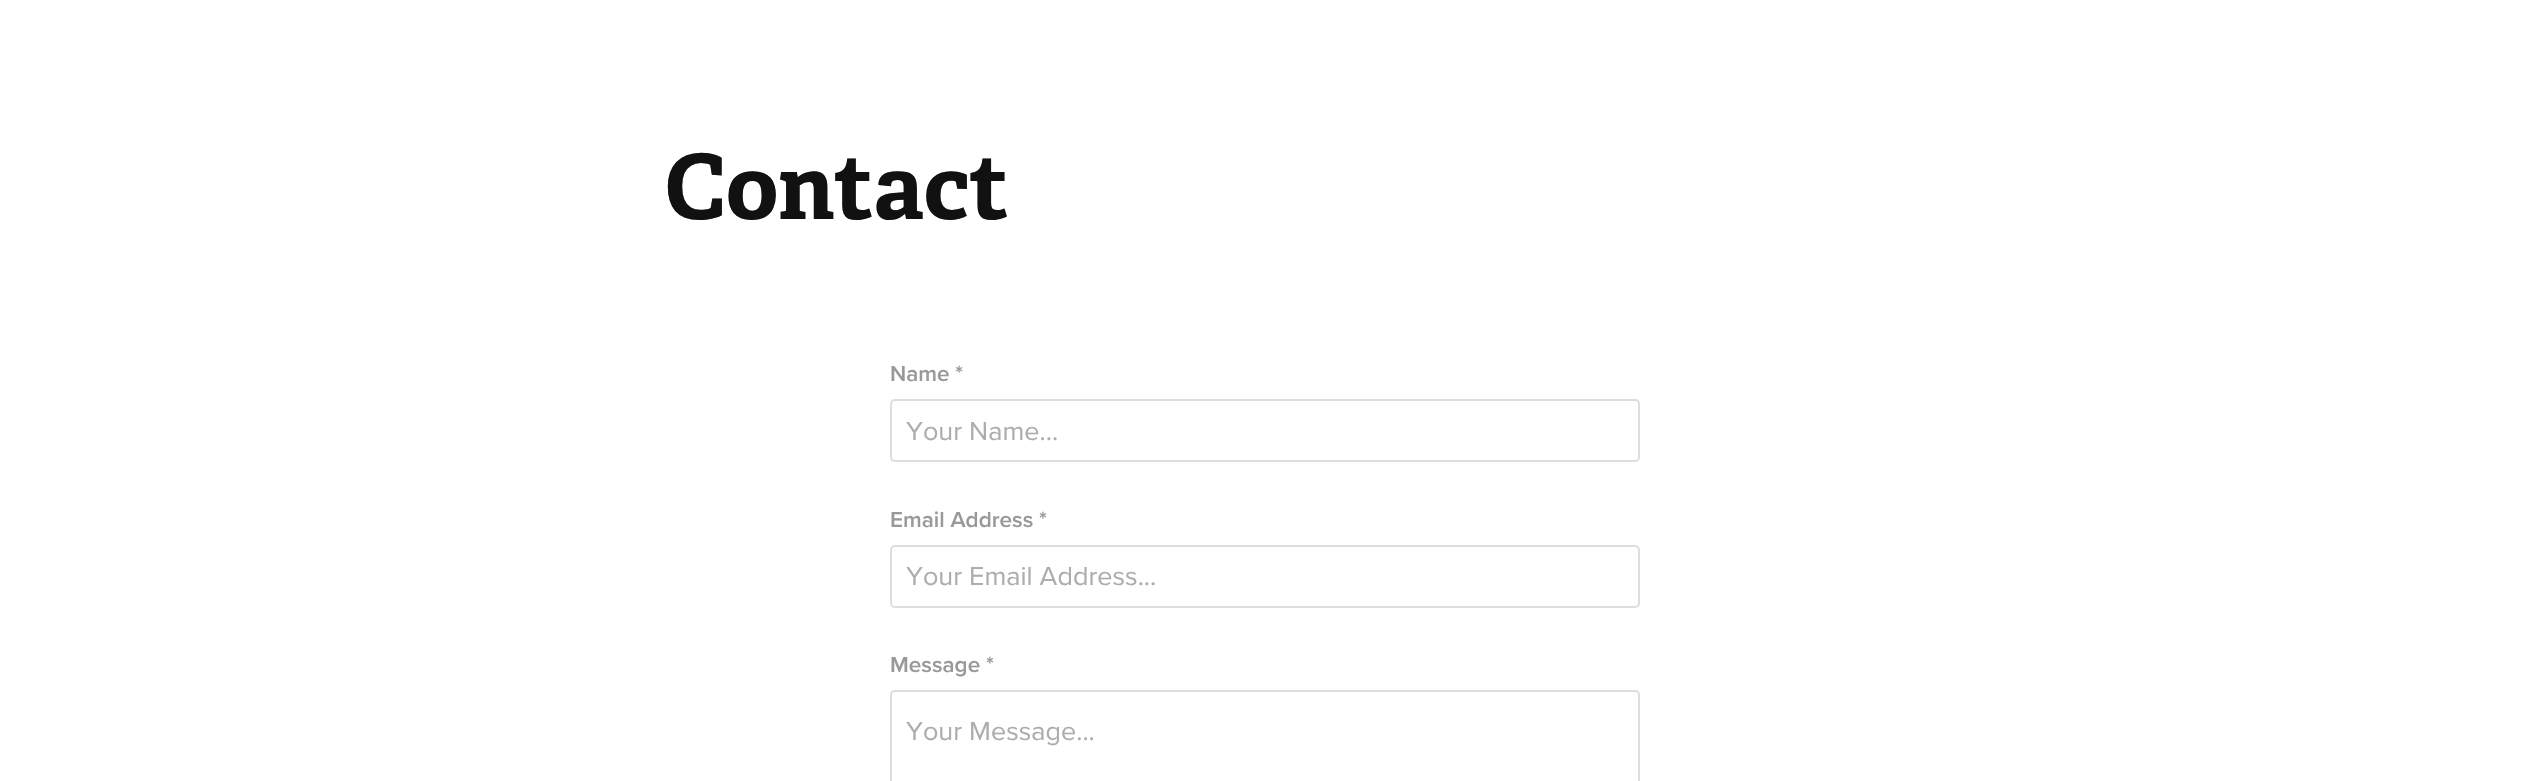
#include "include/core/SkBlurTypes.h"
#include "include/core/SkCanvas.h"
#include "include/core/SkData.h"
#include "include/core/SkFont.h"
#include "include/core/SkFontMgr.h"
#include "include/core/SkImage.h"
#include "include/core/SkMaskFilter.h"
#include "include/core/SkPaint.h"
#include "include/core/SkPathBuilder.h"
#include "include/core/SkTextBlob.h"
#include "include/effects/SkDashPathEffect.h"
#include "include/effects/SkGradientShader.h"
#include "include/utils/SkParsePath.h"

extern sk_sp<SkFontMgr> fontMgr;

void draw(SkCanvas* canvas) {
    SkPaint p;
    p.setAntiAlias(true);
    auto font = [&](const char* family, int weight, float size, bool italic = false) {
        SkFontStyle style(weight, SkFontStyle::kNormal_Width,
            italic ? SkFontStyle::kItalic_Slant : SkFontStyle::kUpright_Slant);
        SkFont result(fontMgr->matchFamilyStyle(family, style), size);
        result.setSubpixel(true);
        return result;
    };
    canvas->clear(0xFFFFFFFF);
    auto font1 = font("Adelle", 700, 90);
    p.setColor(0xFF111111);
    canvas->drawString("Contact", 665, 219, font1, p);
    auto font2 = font("Proxima Nova", 600, 22.5f);
    p.setColor(0xFF999999);
    canvas->drawString("Name *", 890, 381, font2, p);
    p.setStyle(SkPaint::kStroke_Style);
    p.setStrokeWidth(2);
    p.setColor(0xFFDDDDDD);
    canvas->drawRoundRect(SkRect::MakeLTRB(891, 400, 1639, 461), 4, 4, p);
    auto font3 = font("Proxima Nova", 400, 27);
    p.setStyle(SkPaint::kFill_Style);
    p.setColor(0xFFADADAD);
    canvas->drawString("Your Name...", 906, 440, font3, p);
    p.setColor(0xFF999999);
    canvas->drawString("Email Address *", 890, 527, font2, p);
    p.setStyle(SkPaint::kStroke_Style);
    p.setColor(0xFFDDDDDD);
    canvas->drawRoundRect(SkRect::MakeLTRB(891, 546, 1639, 607), 4, 4, p);
    p.setStyle(SkPaint::kFill_Style);
    p.setColor(0xFFADADAD);
    canvas->drawString("Your Email Address...", 906, 585, font3, p);
    p.setColor(0xFF999999);
    canvas->drawString("Message *", 890, 672, font2, p);
    p.setStyle(SkPaint::kStroke_Style);
    p.setColor(0xFFDDDDDD);
    canvas->drawRoundRect(SkRect::MakeLTRB(891, 691, 1639, 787), 4, 4, p);
    p.setStyle(SkPaint::kFill_Style);
    p.setColor(0xFFADADAD);
    canvas->drawString("Your Message...", 906, 740, font3, p);
}
